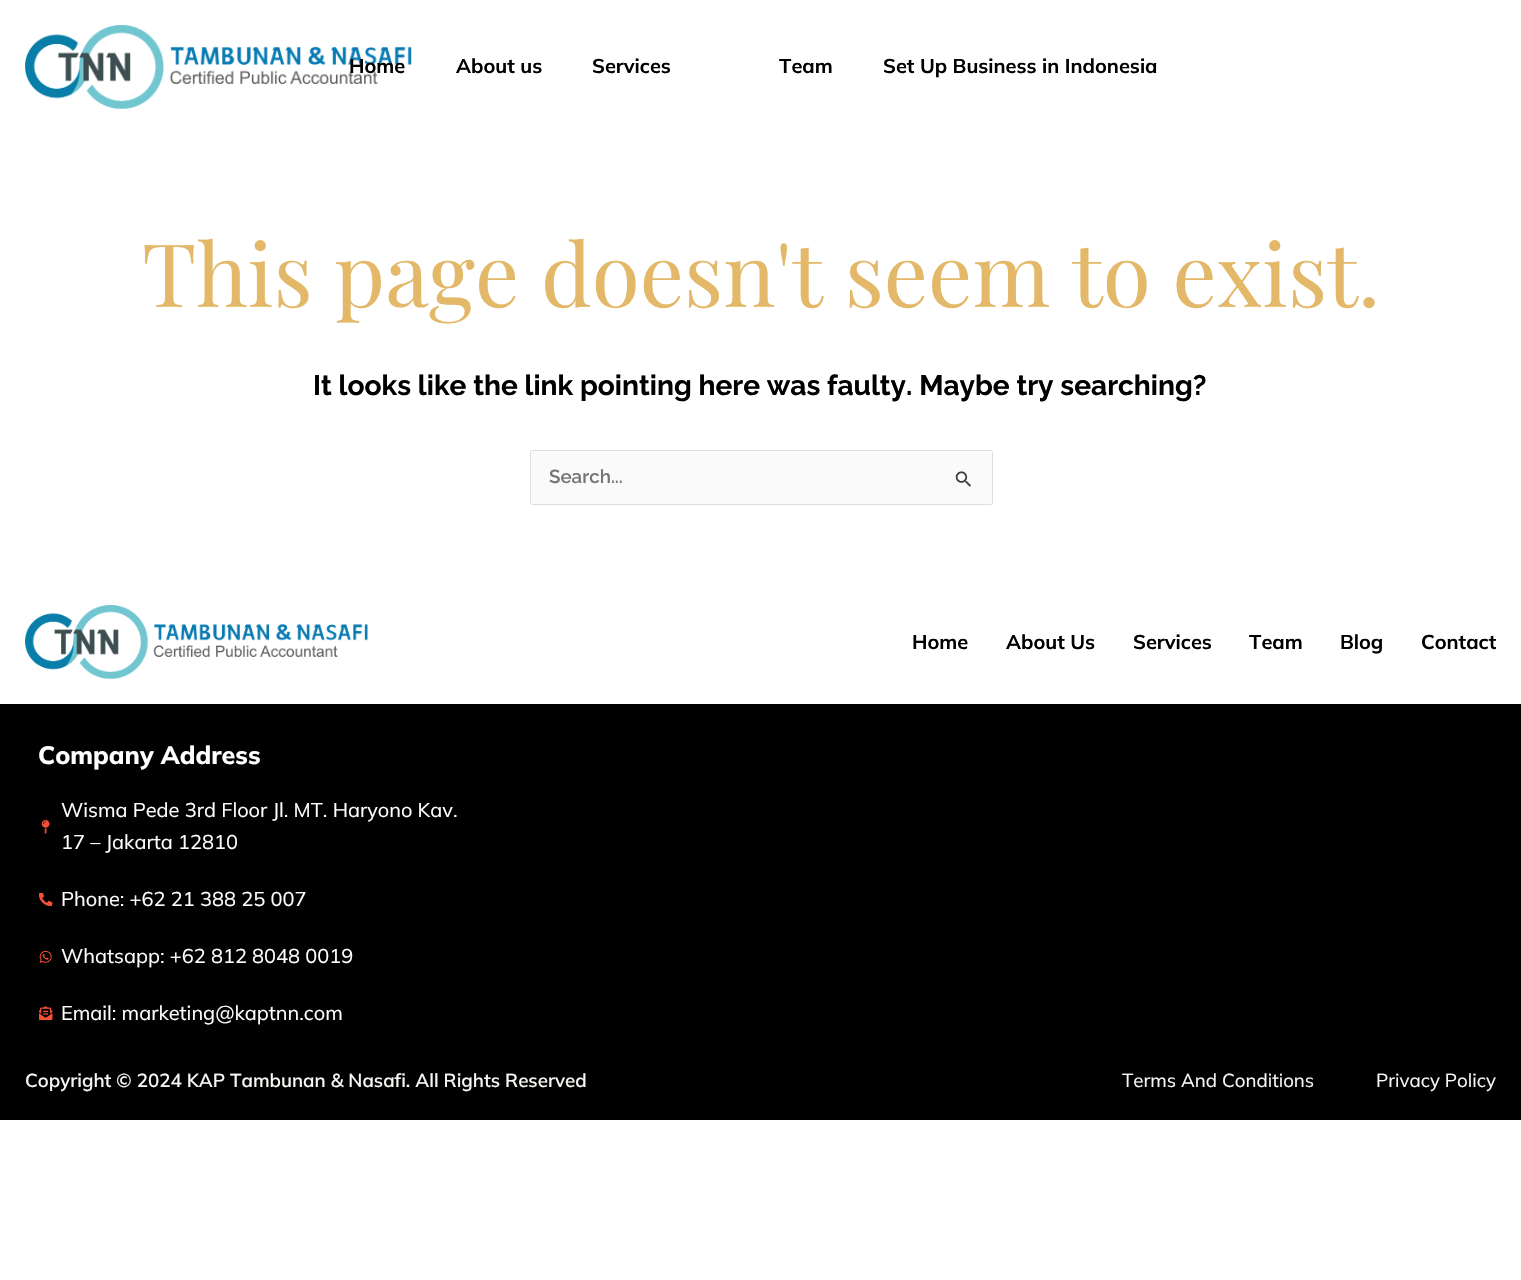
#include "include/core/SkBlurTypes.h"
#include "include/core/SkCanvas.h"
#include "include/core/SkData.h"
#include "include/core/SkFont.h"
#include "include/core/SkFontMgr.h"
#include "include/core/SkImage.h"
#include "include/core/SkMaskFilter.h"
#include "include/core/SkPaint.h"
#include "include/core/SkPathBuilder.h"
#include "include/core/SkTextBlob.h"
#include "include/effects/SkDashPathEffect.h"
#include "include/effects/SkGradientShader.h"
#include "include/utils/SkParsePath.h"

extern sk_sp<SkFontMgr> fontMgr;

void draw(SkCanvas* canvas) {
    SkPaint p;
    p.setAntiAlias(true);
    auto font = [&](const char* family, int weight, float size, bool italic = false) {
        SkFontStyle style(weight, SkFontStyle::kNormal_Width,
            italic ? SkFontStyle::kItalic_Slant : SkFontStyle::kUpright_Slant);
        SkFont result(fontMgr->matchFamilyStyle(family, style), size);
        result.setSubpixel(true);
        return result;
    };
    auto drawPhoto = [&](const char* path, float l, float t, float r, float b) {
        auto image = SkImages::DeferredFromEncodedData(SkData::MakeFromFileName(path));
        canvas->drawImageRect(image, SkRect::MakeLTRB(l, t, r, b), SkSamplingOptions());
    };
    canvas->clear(0xFFFFFFFF);
    drawPhoto("media/1.png", 25, 25, 412, 109);
    auto font1 = font("Mulish", 700, 20);
    p.setColor(0xFF000000);
    {
        const struct { const char* s; float x, y; } items[] = {
            {"Home", 349, 73},
            {"About us", 456, 73},
            {"Services", 592, 73},
            {"Team", 779, 73},
            {"Set Up Business in Indonesia", 883, 73},
        };
        for (auto [s, x, y] : items) {
            canvas->drawString(s, x, y, font1, p);
        }
    }
    auto font2 = font("Playfair Display", 400, 87.5f);
    p.setColor(0xFFE3B969);
    canvas->drawString("This page doesn't seem to exist.", 142, 307, font2, p);
    auto font3 = font("Raleway", 700, 28.1f);
    p.setColor(0xFF000000);
    canvas->drawString("It looks like the link pointing here was faulty. Maybe try searching?", 313, 395, font3, p);
    p.setColor(0xFFFAFAFA);
    canvas->drawRoundRect(SkRect::MakeLTRB(530.5f, 450.5f, 992.5f, 504.5f), 2, 2, p);
    p.setStyle(SkPaint::kStroke_Style);
    p.setStrokeWidth(1);
    p.setColor(0xFFDDDDDD);
    canvas->drawRoundRect(SkRect::MakeLTRB(530.5f, 450.5f, 992.5f, 504.5f), 2, 2, p);
    auto font4 = font("Raleway", 600, 18.75f);
    p.setStyle(SkPaint::kFill_Style);
    p.setColor(0xFF757575);
    canvas->drawString("Search...", 549, 483, font4, p);
    drawPhoto("media/2.png", 955, 471, 971, 487);
    drawPhoto("media/3.png", 25, 605, 368, 679);
    p.setColor(0xFF000000);
    {
        const struct { const char* s; float x, y; } items[] = {
            {"Home", 912, 649},
            {"About Us", 1006, 649},
            {"Services", 1133, 649},
            {"Team", 1249, 649},
            {"Blog", 1340, 649},
            {"Contact", 1421, 649},
        };
        for (auto [s, x, y] : items) {
            canvas->drawString(s, x, y, font1, p);
        }
    }
    canvas->drawRect(SkRect::MakeLTRB(0, 704, 1521, 1120), p);
    auto font5 = font("Mulish", 800, 25);
    p.setColor(0xFFFFFFFF);
    canvas->drawString("Company Address", 38, 764, font5, p);
    drawPhoto("media/4.png", 41, 820, 50, 834);
    auto font6 = font("Mulish", 400, 20);
    canvas->drawString("Wisma Pede 3rd Floor Jl. MT. Haryono Kav.", 61, 817, font6, p);
    canvas->drawString("17 – Jakarta 12810", 61, 849, font6, p);
    drawPhoto("media/5.png", 39, 893, 53, 906);
    canvas->drawString("Phone: +62 21 388 25 007", 61, 906, font6, p);
    drawPhoto("media/6.png", 39, 950, 52, 963);
    canvas->drawString("Whatsapp: +62 812 8048 0019", 61, 963, font6, p);
    drawPhoto("media/7.png", 39, 1006, 53, 1020);
    canvas->drawString("Email: marketing@kaptnn.com", 61, 1020, font6, p);
    auto font7 = font("Mulish", 600, 18.75f);
    p.setColor(0xFFF9F7F3);
    canvas->drawString("Copyright © 2024 KAP Tambunan & Nasafi. All Rights Reserved", 25, 1087, font7, p);
    auto font8 = font("Mulish", 400, 18.75f);
    canvas->drawString("Terms And Conditions", 1122, 1087, font8, p);
    canvas->drawString("Privacy Policy", 1376, 1087, font8, p);
}
